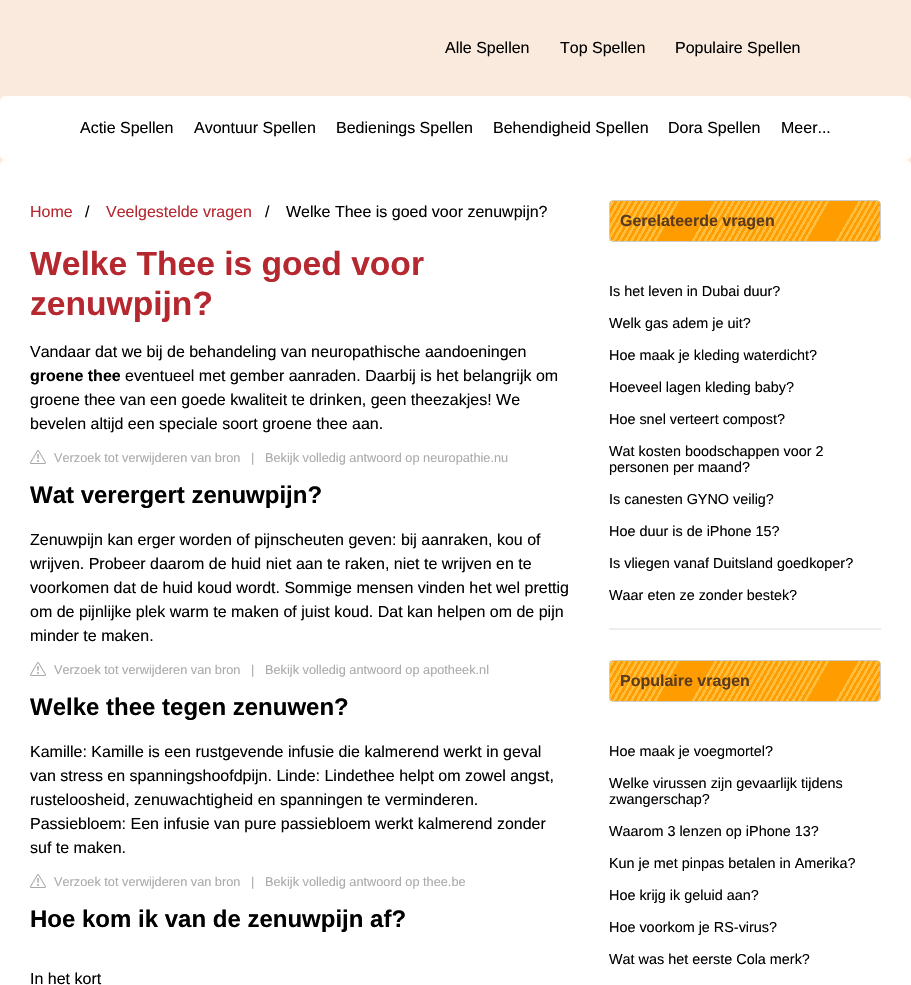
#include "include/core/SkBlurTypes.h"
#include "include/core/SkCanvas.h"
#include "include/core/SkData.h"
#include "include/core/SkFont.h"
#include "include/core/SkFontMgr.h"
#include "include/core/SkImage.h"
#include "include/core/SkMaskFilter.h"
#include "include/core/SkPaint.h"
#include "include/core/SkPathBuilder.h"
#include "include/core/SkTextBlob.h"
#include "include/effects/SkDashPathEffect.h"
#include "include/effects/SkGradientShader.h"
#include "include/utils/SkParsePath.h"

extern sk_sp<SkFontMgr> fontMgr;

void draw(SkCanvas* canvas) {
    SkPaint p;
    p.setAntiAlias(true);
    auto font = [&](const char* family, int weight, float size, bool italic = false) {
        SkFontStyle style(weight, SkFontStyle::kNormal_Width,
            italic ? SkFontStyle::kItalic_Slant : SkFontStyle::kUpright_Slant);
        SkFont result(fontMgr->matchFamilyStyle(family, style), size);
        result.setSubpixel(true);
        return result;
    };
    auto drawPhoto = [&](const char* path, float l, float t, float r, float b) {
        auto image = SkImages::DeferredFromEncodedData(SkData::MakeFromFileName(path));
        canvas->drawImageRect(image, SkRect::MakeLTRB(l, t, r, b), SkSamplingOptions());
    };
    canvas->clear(0xFFF9EADD);
    auto font1 = font("Liberation Sans", 400, 16);
    p.setColor(0xFF000000);
    {
        const struct { const char* s; float x, y; } items[] = {
            {"Alle Spellen", 445, 53},
            {"Top Spellen", 560, 53},
            {"Populaire Spellen", 675, 53},
        };
        for (auto [s, x, y] : items) {
            canvas->drawString(s, x, y, font1, p);
        }
    }
    p.setColor(0xFFFFFFFF);
    canvas->drawRoundRect(SkRect::MakeLTRB(0, 96, 911, 160), 5, 5, p);
    p.setColor(0xFF000000);
    {
        const struct { const char* s; float x, y; } items[] = {
            {"Actie Spellen", 80, 133},
            {"Avontuur Spellen", 194, 133},
            {"Bedienings Spellen", 336, 133},
            {"Behendigheid Spellen", 493, 133},
            {"Dora Spellen", 668, 133},
            {"Meer...", 781, 133},
        };
        for (auto [s, x, y] : items) {
            canvas->drawString(s, x, y, font1, p);
        }
    }
    p.setColor(0xFFFFFFFF);
    canvas->drawRoundRect(SkRect::MakeLTRB(0, 160, 911, 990), 5, 5, p);
    p.setColor(0xFFB62830);
    canvas->drawString("Home", 30, 217, font1, p);
    p.setColor(0xFF000000);
    canvas->drawString("/", 85, 217, font1, p);
    p.setColor(0xFFB62830);
    canvas->drawString("Veelgestelde vragen", 106, 217, font1, p);
    p.setColor(0xFF000000);
    canvas->drawString("/", 265, 217, font1, p);
    canvas->drawString("Welke Thee is goed voor zenuwpijn?", 286, 217, font1, p);
    auto font2 = font("Liberation Sans", 700, 33.6f);
    p.setColor(0xFFB62830);
    canvas->drawString("Welke Thee is goed voor", 30, 275, font2, p);
    canvas->drawString("zenuwpijn?", 30, 315, font2, p);
    p.setColor(0xFF000000);
    canvas->drawString("Vandaar dat we bij de behandeling van neuropathische aandoeningen", 30, 357, font1, p);
    auto font3 = font("Liberation Sans", 700, 16);
    canvas->drawString("groene thee", 30, 381, font3, p);
    {
        const struct { const char* s; float x, y; } items[] = {
            {"eventueel met gember aanraden. Daarbij is het belangrijk om", 125, 381},
            {"groene thee van een goede kwaliteit te drinken, geen theezakjes! We", 30, 405},
            {"bevelen altijd een speciale soort groene thee aan.", 30, 429},
        };
        for (auto [s, x, y] : items) {
            canvas->drawString(s, x, y, font1, p);
        }
    }
    drawPhoto("media/1.png", 30, 450, 46, 464);
    auto font4 = font("Liberation Sans", 400, 12.75f);
    p.setColor(0xFFAAAAAA);
    {
        const struct { const char* s; float x, y; } items[] = {
            {"Verzoek tot verwijderen van bron", 54, 462},
            {"|", 251, 462},
            {"Bekijk volledig antwoord op neuropathie.nu", 265, 462},
        };
        for (auto [s, x, y] : items) {
            canvas->drawString(s, x, y, font4, p);
        }
    }
    auto font5 = font("Liberation Sans", 700, 24);
    p.setColor(0xFF000000);
    canvas->drawString("Wat verergert zenuwpijn?", 30, 503, font5, p);
    {
        const struct { const char* s; float x, y; } items[] = {
            {"Zenuwpijn kan erger worden of pijnscheuten geven: bij aanraken, kou of", 30, 545},
            {"wrijven. Probeer daarom de huid niet aan te raken, niet te wrijven en te", 30, 569},
            {"voorkomen dat de huid koud wordt. Sommige mensen vinden het wel prettig", 30, 593},
            {"om de pijnlijke plek warm te maken of juist koud. Dat kan helpen om de pijn", 30, 617},
            {"minder te maken.", 30, 641},
        };
        for (auto [s, x, y] : items) {
            canvas->drawString(s, x, y, font1, p);
        }
    }
    drawPhoto("media/1.png", 30, 662, 46, 676);
    p.setColor(0xFFAAAAAA);
    {
        const struct { const char* s; float x, y; } items[] = {
            {"Verzoek tot verwijderen van bron", 54, 674},
            {"|", 251, 674},
            {"Bekijk volledig antwoord op apotheek.nl", 265, 674},
        };
        for (auto [s, x, y] : items) {
            canvas->drawString(s, x, y, font4, p);
        }
    }
    p.setColor(0xFF000000);
    canvas->drawString("Welke thee tegen zenuwen?", 30, 715, font5, p);
    {
        const struct { const char* s; float x, y; } items[] = {
            {"Kamille: Kamille is een rustgevende infusie die kalmerend werkt in geval", 30, 757},
            {"van stress en spanningshoofdpijn. Linde: Lindethee helpt om zowel angst,", 30, 781},
            {"rusteloosheid, zenuwachtigheid en spanningen te verminderen.", 30, 805},
            {"Passiebloem: Een infusie van pure passiebloem werkt kalmerend zonder", 30, 829},
            {"suf te maken.", 30, 853},
        };
        for (auto [s, x, y] : items) {
            canvas->drawString(s, x, y, font1, p);
        }
    }
    drawPhoto("media/1.png", 30, 874, 46, 888);
    p.setColor(0xFFAAAAAA);
    {
        const struct { const char* s; float x, y; } items[] = {
            {"Verzoek tot verwijderen van bron", 54, 886},
            {"|", 251, 886},
            {"Bekijk volledig antwoord op thee.be", 265, 886},
        };
        for (auto [s, x, y] : items) {
            canvas->drawString(s, x, y, font4, p);
        }
    }
    p.setColor(0xFF000000);
    canvas->drawString("Hoe kom ik van de zenuwpijn af?", 30, 927, font5, p);
    canvas->drawString("In het kort", 30, 984, font1, p);
    p.setColor(0xFFFFBE3D);
    canvas->drawRoundRect(SkRect::MakeLTRB(609, 200, 881, 242), 5, 5, p);
    canvas->save();
    canvas->clipPath(SkPathBuilder().moveTo(614, 200).lineTo(876, 200).cubicTo(879, 200, 881, 202, 881, 205).lineTo(881, 237).cubicTo(881, 240, 879, 242, 876, 242).lineTo(614, 242).cubicTo(611, 242, 609, 240, 609, 237).lineTo(609, 205).cubicTo(609, 202, 611, 200, 614, 200).close().detach(), true);
    {
        const SkColor colors[] = {0x00000000, 0x00FF9C00, 0xFFFF9C00, 0xFFFF9C00, 0x00FF9C00, 0x00FF9C00, 0xFFFF9C00, 0xFFFF9C00, 0x00FF9C00, 0x00FF9C00, 0xFFFF9C00, 0xFFFF9C00, 0x00FF9C00, 0x00FF9C00, 0xFFFF9C00, 0xFFFF9C00, 0x00FF9C00, 0x00FF9C00, 0xFFFF9C00, 0xFFFF9C00, 0x00FF9C00, 0x00FF9C00, 0xFFFF9C00, 0xFFFF9C00, 0x00FF9C00, 0x00FF9C00, 0xFFFF9C00, 0xFFFF9C00, 0x00FF9C00, 0x00FF9C00, 0xFFFF9C00, 0xFFFF9C00, 0x00FF9C00, 0x00FF9C00, 0xFFFF9C00, 0xFFFF9C00, 0x00FF9C00, 0x00FF9C00, 0xFFFF9C00, 0xFFFF9C00, 0x00FF9C00, 0x00FF9C00, 0xFFFF9C00, 0xFFFF9C00, 0x00FF9C00, 0x00FF9C00, 0xFFFF9C00, 0xFFFF9C00, 0x00FF9C00, 0x00FF9C00, 0xFFFF9C00, 0xFFFF9C00, 0x00FF9C00, 0x00FF9C00, 0xFFFF9C00, 0xFFFF9C00, 0x00FF9C00, 0x00FF9C00, 0xFFFF9C00, 0xFFFF9C00, 0x00FF9C00, 0x00FF9C00, 0xFFFF9C00, 0xFFFF9C00, 0x00FF9C00, 0x00FF9C00, 0xFFFF9C00, 0xFFFF9C00, 0x00FF9C00, 0x00FF9C00, 0xFFFF9C00, 0xFFFF9C00, 0x00FF9C00, 0x00FF9C00, 0xFFFF9C00, 0xFFFF9C00, 0x00FF9C00, 0x00FF9C00, 0xFFFF9C00, 0xFFFF9C00, 0x00FF9C00, 0x00FF9C00, 0xFFFF9C00, 0xFFFF9C00, 0x00FF9C00, 0x00FF9C00, 0xFFFF9C00, 0xFFFF9C00, 0x00FF9C00, 0x00FF9C00, 0xFFFF9C00, 0xFFFF9C00, 0x00FF9C00, 0x00FF9C00, 0xFFFF9C00, 0xFFFF9C00, 0x00FF9C00, 0x00FF9C00, 0xFFFF9C00, 0xFFFF9C00, 0x00FF9C00, 0x00FF9C00, 0xFFFF9C00, 0xFFFF9C00, 0x00FF9C00, 0x00FF9C00, 0xFFFF9C00, 0xFFFF9C00, 0x00FF9C00, 0x00FF9C00, 0xFFFF9C00, 0xFFFF9C00, 0x00FF9C00, 0x00FF9C00, 0xFFFF9C00, 0xFFFF9C00, 0x00FF9C00, 0x00FF9C00, 0xFFFF9C00, 0xFFFF9C00, 0x00FF9C00, 0x00FF9C00, 0xFFFF9C00, 0xFFFF9C00, 0x00FF9C00, 0x00FF9C00, 0xFFFF9C00, 0xFFFF9C00, 0x00FF9C00, 0x00FF9C00, 0xFFFF9C00, 0xFFFF9C00, 0x00FF9C00, 0x00FF9C00, 0xFFFF9C00, 0xFFFF9C00, 0x00FF9C00, 0x00FF9C00, 0xFFFF9C00, 0xFFFF9C00, 0x00FF9C00, 0x00FF9C00, 0xFFFF9C00, 0xFFFF9C00, 0x00FF9C00, 0x00FF9C00, 0xFFFF9C00, 0xFFFF9C00, 0x00FF9C00, 0x00FF9C00, 0xFFFF9C00, 0xFFFF9C00, 0x00FF9C00, 0x00FF9C00, 0xFFFF9C00, 0xFFFF9C00, 0x00FF9C00, 0x00FF9C00, 0xFFFF9C00, 0xFFFF9C00, 0x00FF9C00, 0x00FF9C00, 0xFFFF9C00, 0xFFFF9C00, 0x00FF9C00, 0x00FF9C00, 0xFFFF9C00, 0xFFFF9C00, 0x00FF9C00, 0x00FF9C00, 0xFFFF9C00, 0xFFFF9C00, 0x00FF9C00, 0x00FF9C00, 0xFFFF9C00, 0xFFFF9C00, 0x00FF9C00, 0x00FF9C00, 0xFFFF9C00, 0xFFFF9C00, 0x00FF9C00, 0x00FF9C00, 0xFFFF9C00, 0xFFFF9C00, 0x00FF9C00, 0x00FF9C00, 0xFFFF9C00, 0xFFFF9C00, 0x00FF9C00, 0x00FF9C00, 0xFFFF9C00, 0xFFFF9C00, 0x00FF9C00, 0x00FF9C00, 0xFFFF9C00, 0xFFFF9C00, 0x00FF9C00, 0x00FF9C00, 0xFFFF9C00, 0xFFFF9C00, 0x00FF9C00, 0x00FF9C00, 0xFFFF9C00, 0xFFFF9C00};
        const float stops[] = {0, 0.01f, 0.01f, 0.02f, 0.02f, 0.03f, 0.03f, 0.04f, 0.04f, 0.05f, 0.05f, 0.06f, 0.06f, 0.07f, 0.07f, 0.08f, 0.08f, 0.09f, 0.09f, 0.1f, 0.1f, 0.11f, 0.11f, 0.12f, 0.12f, 0.13f, 0.13f, 0.14f, 0.14f, 0.15f, 0.15f, 0.16f, 0.16f, 0.16f, 0.16f, 0.18f, 0.18f, 0.18f, 0.18f, 0.2f, 0.2f, 0.2f, 0.2f, 0.22f, 0.22f, 0.22f, 0.22f, 0.24f, 0.24f, 0.24f, 0.24f, 0.25f, 0.25f, 0.26f, 0.26f, 0.27f, 0.27f, 0.28f, 0.28f, 0.29f, 0.29f, 0.3f, 0.3f, 0.31f, 0.31f, 0.32f, 0.32f, 0.33f, 0.33f, 0.34f, 0.34f, 0.35f, 0.35f, 0.36f, 0.36f, 0.37f, 0.37f, 0.38f, 0.38f, 0.39f, 0.39f, 0.4f, 0.4f, 0.41f, 0.41f, 0.42f, 0.42f, 0.43f, 0.43f, 0.44f, 0.44f, 0.45f, 0.45f, 0.46f, 0.46f, 0.47f, 0.47f, 0.48f, 0.48f, 0.49f, 0.49f, 0.5f, 0.5f, 0.51f, 0.51f, 0.52f, 0.52f, 0.53f, 0.53f, 0.54f, 0.54f, 0.55f, 0.55f, 0.56f, 0.56f, 0.57f, 0.57f, 0.58f, 0.58f, 0.59f, 0.59f, 0.6f, 0.6f, 0.61f, 0.61f, 0.62f, 0.62f, 0.63f, 0.63f, 0.64f, 0.64f, 0.65f, 0.65f, 0.65f, 0.65f, 0.67f, 0.67f, 0.67f, 0.67f, 0.69f, 0.69f, 0.69f, 0.69f, 0.71f, 0.71f, 0.71f, 0.71f, 0.73f, 0.73f, 0.73f, 0.73f, 0.75f, 0.75f, 0.75f, 0.75f, 0.76f, 0.76f, 0.77f, 0.77f, 0.78f, 0.78f, 0.79f, 0.79f, 0.8f, 0.8f, 0.81f, 0.81f, 0.82f, 0.82f, 0.83f, 0.83f, 0.84f, 0.84f, 0.85f, 0.85f, 0.86f, 0.86f, 0.87f, 0.87f, 0.88f, 0.88f, 0.89f, 0.89f, 0.9f, 0.9f, 0.91f, 0.91f, 0.92f, 0.92f, 0.93f, 0.93f, 0.94f, 0.94f, 0.95f, 0.95f, 0.96f, 0.96f, 0.97f, 0.97f, 0.98f, 0.98f, 0.99f, 0.99f, 1};
        const SkPoint ends[] = {{855, 284}, {634, 157}};
        p.setShader(SkGradientShader::MakeLinear(ends, colors, stops, 204, SkTileMode::kClamp));
        p.setAlpha(255);
    }
    canvas->drawRect(SkRect::MakeLTRB(610, 201, 880, 241), p);
    canvas->restore();
    p.setStyle(SkPaint::kStroke_Style);
    p.setStrokeWidth(1);
    p.setShader(nullptr);
    p.setColor(0xFFCCCCCC);
    canvas->drawRoundRect(SkRect::MakeLTRB(609.5f, 200.5f, 880.5f, 241.5f), 4.5f, 4.5f, p);
    p.setStyle(SkPaint::kFill_Style);
    p.setColor(0xFF5C3B1D);
    canvas->drawString("Gerelateerde vragen", 620, 226, font3, p);
    p.setColor(0xFFEEEEEE);
    canvas->drawRect(SkRect::MakeLTRB(609, 628, 881, 630), p);
    auto font6 = font("Liberation Sans", 400, 14.4f);
    p.setColor(0xFF000000);
    {
        const struct { const char* s; float x, y; } items[] = {
            {"Is het leven in Dubai duur?", 609, 296},
            {"Welk gas adem je uit?", 609, 328},
            {"Hoe maak je kleding waterdicht?", 609, 360},
            {"Hoeveel lagen kleding baby?", 609, 392},
            {"Hoe snel verteert compost?", 609, 424},
            {"Wat kosten boodschappen voor 2", 609, 456},
            {"personen per maand?", 609, 472},
            {"Is canesten GYNO veilig?", 609, 504},
            {"Hoe duur is de iPhone 15?", 609, 536},
            {"Is vliegen vanaf Duitsland goedkoper?", 609, 568},
            {"Waar eten ze zonder bestek?", 609, 600},
        };
        for (auto [s, x, y] : items) {
            canvas->drawString(s, x, y, font6, p);
        }
    }
    p.setColor(0xFFFFBE3D);
    canvas->drawRoundRect(SkRect::MakeLTRB(609, 660, 881, 702), 5, 5, p);
    canvas->save();
    canvas->clipPath(SkPathBuilder().moveTo(614, 660).lineTo(876, 660).cubicTo(879, 660, 881, 662, 881, 665).lineTo(881, 697).cubicTo(881, 700, 879, 702, 876, 702).lineTo(614, 702).cubicTo(611, 702, 609, 700, 609, 697).lineTo(609, 665).cubicTo(609, 662, 611, 660, 614, 660).close().detach(), true);
    {
        const SkColor colors[] = {0x00000000, 0x00FF9C00, 0xFFFF9C00, 0xFFFF9C00, 0x00FF9C00, 0x00FF9C00, 0xFFFF9C00, 0xFFFF9C00, 0x00FF9C00, 0x00FF9C00, 0xFFFF9C00, 0xFFFF9C00, 0x00FF9C00, 0x00FF9C00, 0xFFFF9C00, 0xFFFF9C00, 0x00FF9C00, 0x00FF9C00, 0xFFFF9C00, 0xFFFF9C00, 0x00FF9C00, 0x00FF9C00, 0xFFFF9C00, 0xFFFF9C00, 0x00FF9C00, 0x00FF9C00, 0xFFFF9C00, 0xFFFF9C00, 0x00FF9C00, 0x00FF9C00, 0xFFFF9C00, 0xFFFF9C00, 0x00FF9C00, 0x00FF9C00, 0xFFFF9C00, 0xFFFF9C00, 0x00FF9C00, 0x00FF9C00, 0xFFFF9C00, 0xFFFF9C00, 0x00FF9C00, 0x00FF9C00, 0xFFFF9C00, 0xFFFF9C00, 0x00FF9C00, 0x00FF9C00, 0xFFFF9C00, 0xFFFF9C00, 0x00FF9C00, 0x00FF9C00, 0xFFFF9C00, 0xFFFF9C00, 0x00FF9C00, 0x00FF9C00, 0xFFFF9C00, 0xFFFF9C00, 0x00FF9C00, 0x00FF9C00, 0xFFFF9C00, 0xFFFF9C00, 0x00FF9C00, 0x00FF9C00, 0xFFFF9C00, 0xFFFF9C00, 0x00FF9C00, 0x00FF9C00, 0xFFFF9C00, 0xFFFF9C00, 0x00FF9C00, 0x00FF9C00, 0xFFFF9C00, 0xFFFF9C00, 0x00FF9C00, 0x00FF9C00, 0xFFFF9C00, 0xFFFF9C00, 0x00FF9C00, 0x00FF9C00, 0xFFFF9C00, 0xFFFF9C00, 0x00FF9C00, 0x00FF9C00, 0xFFFF9C00, 0xFFFF9C00, 0x00FF9C00, 0x00FF9C00, 0xFFFF9C00, 0xFFFF9C00, 0x00FF9C00, 0x00FF9C00, 0xFFFF9C00, 0xFFFF9C00, 0x00FF9C00, 0x00FF9C00, 0xFFFF9C00, 0xFFFF9C00, 0x00FF9C00, 0x00FF9C00, 0xFFFF9C00, 0xFFFF9C00, 0x00FF9C00, 0x00FF9C00, 0xFFFF9C00, 0xFFFF9C00, 0x00FF9C00, 0x00FF9C00, 0xFFFF9C00, 0xFFFF9C00, 0x00FF9C00, 0x00FF9C00, 0xFFFF9C00, 0xFFFF9C00, 0x00FF9C00, 0x00FF9C00, 0xFFFF9C00, 0xFFFF9C00, 0x00FF9C00, 0x00FF9C00, 0xFFFF9C00, 0xFFFF9C00, 0x00FF9C00, 0x00FF9C00, 0xFFFF9C00, 0xFFFF9C00, 0x00FF9C00, 0x00FF9C00, 0xFFFF9C00, 0xFFFF9C00, 0x00FF9C00, 0x00FF9C00, 0xFFFF9C00, 0xFFFF9C00, 0x00FF9C00, 0x00FF9C00, 0xFFFF9C00, 0xFFFF9C00, 0x00FF9C00, 0x00FF9C00, 0xFFFF9C00, 0xFFFF9C00, 0x00FF9C00, 0x00FF9C00, 0xFFFF9C00, 0xFFFF9C00, 0x00FF9C00, 0x00FF9C00, 0xFFFF9C00, 0xFFFF9C00, 0x00FF9C00, 0x00FF9C00, 0xFFFF9C00, 0xFFFF9C00, 0x00FF9C00, 0x00FF9C00, 0xFFFF9C00, 0xFFFF9C00, 0x00FF9C00, 0x00FF9C00, 0xFFFF9C00, 0xFFFF9C00, 0x00FF9C00, 0x00FF9C00, 0xFFFF9C00, 0xFFFF9C00, 0x00FF9C00, 0x00FF9C00, 0xFFFF9C00, 0xFFFF9C00, 0x00FF9C00, 0x00FF9C00, 0xFFFF9C00, 0xFFFF9C00, 0x00FF9C00, 0x00FF9C00, 0xFFFF9C00, 0xFFFF9C00, 0x00FF9C00, 0x00FF9C00, 0xFFFF9C00, 0xFFFF9C00, 0x00FF9C00, 0x00FF9C00, 0xFFFF9C00, 0xFFFF9C00, 0x00FF9C00, 0x00FF9C00, 0xFFFF9C00, 0xFFFF9C00, 0x00FF9C00, 0x00FF9C00, 0xFFFF9C00, 0xFFFF9C00, 0x00FF9C00, 0x00FF9C00, 0xFFFF9C00, 0xFFFF9C00, 0x00FF9C00, 0x00FF9C00, 0xFFFF9C00, 0xFFFF9C00, 0x00FF9C00, 0x00FF9C00, 0xFFFF9C00, 0xFFFF9C00};
        const float stops[] = {0, 0.01f, 0.01f, 0.02f, 0.02f, 0.03f, 0.03f, 0.04f, 0.04f, 0.05f, 0.05f, 0.06f, 0.06f, 0.07f, 0.07f, 0.08f, 0.08f, 0.09f, 0.09f, 0.1f, 0.1f, 0.11f, 0.11f, 0.12f, 0.12f, 0.13f, 0.13f, 0.14f, 0.14f, 0.15f, 0.15f, 0.16f, 0.16f, 0.16f, 0.16f, 0.18f, 0.18f, 0.18f, 0.18f, 0.2f, 0.2f, 0.2f, 0.2f, 0.22f, 0.22f, 0.22f, 0.22f, 0.24f, 0.24f, 0.24f, 0.24f, 0.25f, 0.25f, 0.26f, 0.26f, 0.27f, 0.27f, 0.28f, 0.28f, 0.29f, 0.29f, 0.3f, 0.3f, 0.31f, 0.31f, 0.32f, 0.32f, 0.33f, 0.33f, 0.34f, 0.34f, 0.35f, 0.35f, 0.36f, 0.36f, 0.37f, 0.37f, 0.38f, 0.38f, 0.39f, 0.39f, 0.4f, 0.4f, 0.41f, 0.41f, 0.42f, 0.42f, 0.43f, 0.43f, 0.44f, 0.44f, 0.45f, 0.45f, 0.46f, 0.46f, 0.47f, 0.47f, 0.48f, 0.48f, 0.49f, 0.49f, 0.5f, 0.5f, 0.51f, 0.51f, 0.52f, 0.52f, 0.53f, 0.53f, 0.54f, 0.54f, 0.55f, 0.55f, 0.56f, 0.56f, 0.57f, 0.57f, 0.58f, 0.58f, 0.59f, 0.59f, 0.6f, 0.6f, 0.61f, 0.61f, 0.62f, 0.62f, 0.63f, 0.63f, 0.64f, 0.64f, 0.65f, 0.65f, 0.65f, 0.65f, 0.67f, 0.67f, 0.67f, 0.67f, 0.69f, 0.69f, 0.69f, 0.69f, 0.71f, 0.71f, 0.71f, 0.71f, 0.73f, 0.73f, 0.73f, 0.73f, 0.75f, 0.75f, 0.75f, 0.75f, 0.76f, 0.76f, 0.77f, 0.77f, 0.78f, 0.78f, 0.79f, 0.79f, 0.8f, 0.8f, 0.81f, 0.81f, 0.82f, 0.82f, 0.83f, 0.83f, 0.84f, 0.84f, 0.85f, 0.85f, 0.86f, 0.86f, 0.87f, 0.87f, 0.88f, 0.88f, 0.89f, 0.89f, 0.9f, 0.9f, 0.91f, 0.91f, 0.92f, 0.92f, 0.93f, 0.93f, 0.94f, 0.94f, 0.95f, 0.95f, 0.96f, 0.96f, 0.97f, 0.97f, 0.98f, 0.98f, 0.99f, 0.99f, 1};
        const SkPoint ends[] = {{855, 744}, {634, 617}};
        p.setShader(SkGradientShader::MakeLinear(ends, colors, stops, 204, SkTileMode::kClamp));
        p.setAlpha(255);
    }
    canvas->drawRect(SkRect::MakeLTRB(610, 661, 880, 701), p);
    canvas->restore();
    p.setStyle(SkPaint::kStroke_Style);
    p.setShader(nullptr);
    p.setColor(0xFFCCCCCC);
    canvas->drawRoundRect(SkRect::MakeLTRB(609.5f, 660.5f, 880.5f, 701.5f), 4.5f, 4.5f, p);
    p.setStyle(SkPaint::kFill_Style);
    p.setColor(0xFF5C3B1D);
    canvas->drawString("Populaire vragen", 620, 686, font3, p);
    p.setColor(0xFF000000);
    {
        const struct { const char* s; float x, y; } items[] = {
            {"Hoe maak je voegmortel?", 609, 756},
            {"Welke virussen zijn gevaarlijk tijdens", 609, 788},
            {"zwangerschap?", 609, 804},
            {"Waarom 3 lenzen op iPhone 13?", 609, 836},
            {"Kun je met pinpas betalen in Amerika?", 609, 868},
            {"Hoe krijg ik geluid aan?", 609, 900},
            {"Hoe voorkom je RS-virus?", 609, 932},
            {"Wat was het eerste Cola merk?", 609, 964},
        };
        for (auto [s, x, y] : items) {
            canvas->drawString(s, x, y, font6, p);
        }
    }
}
